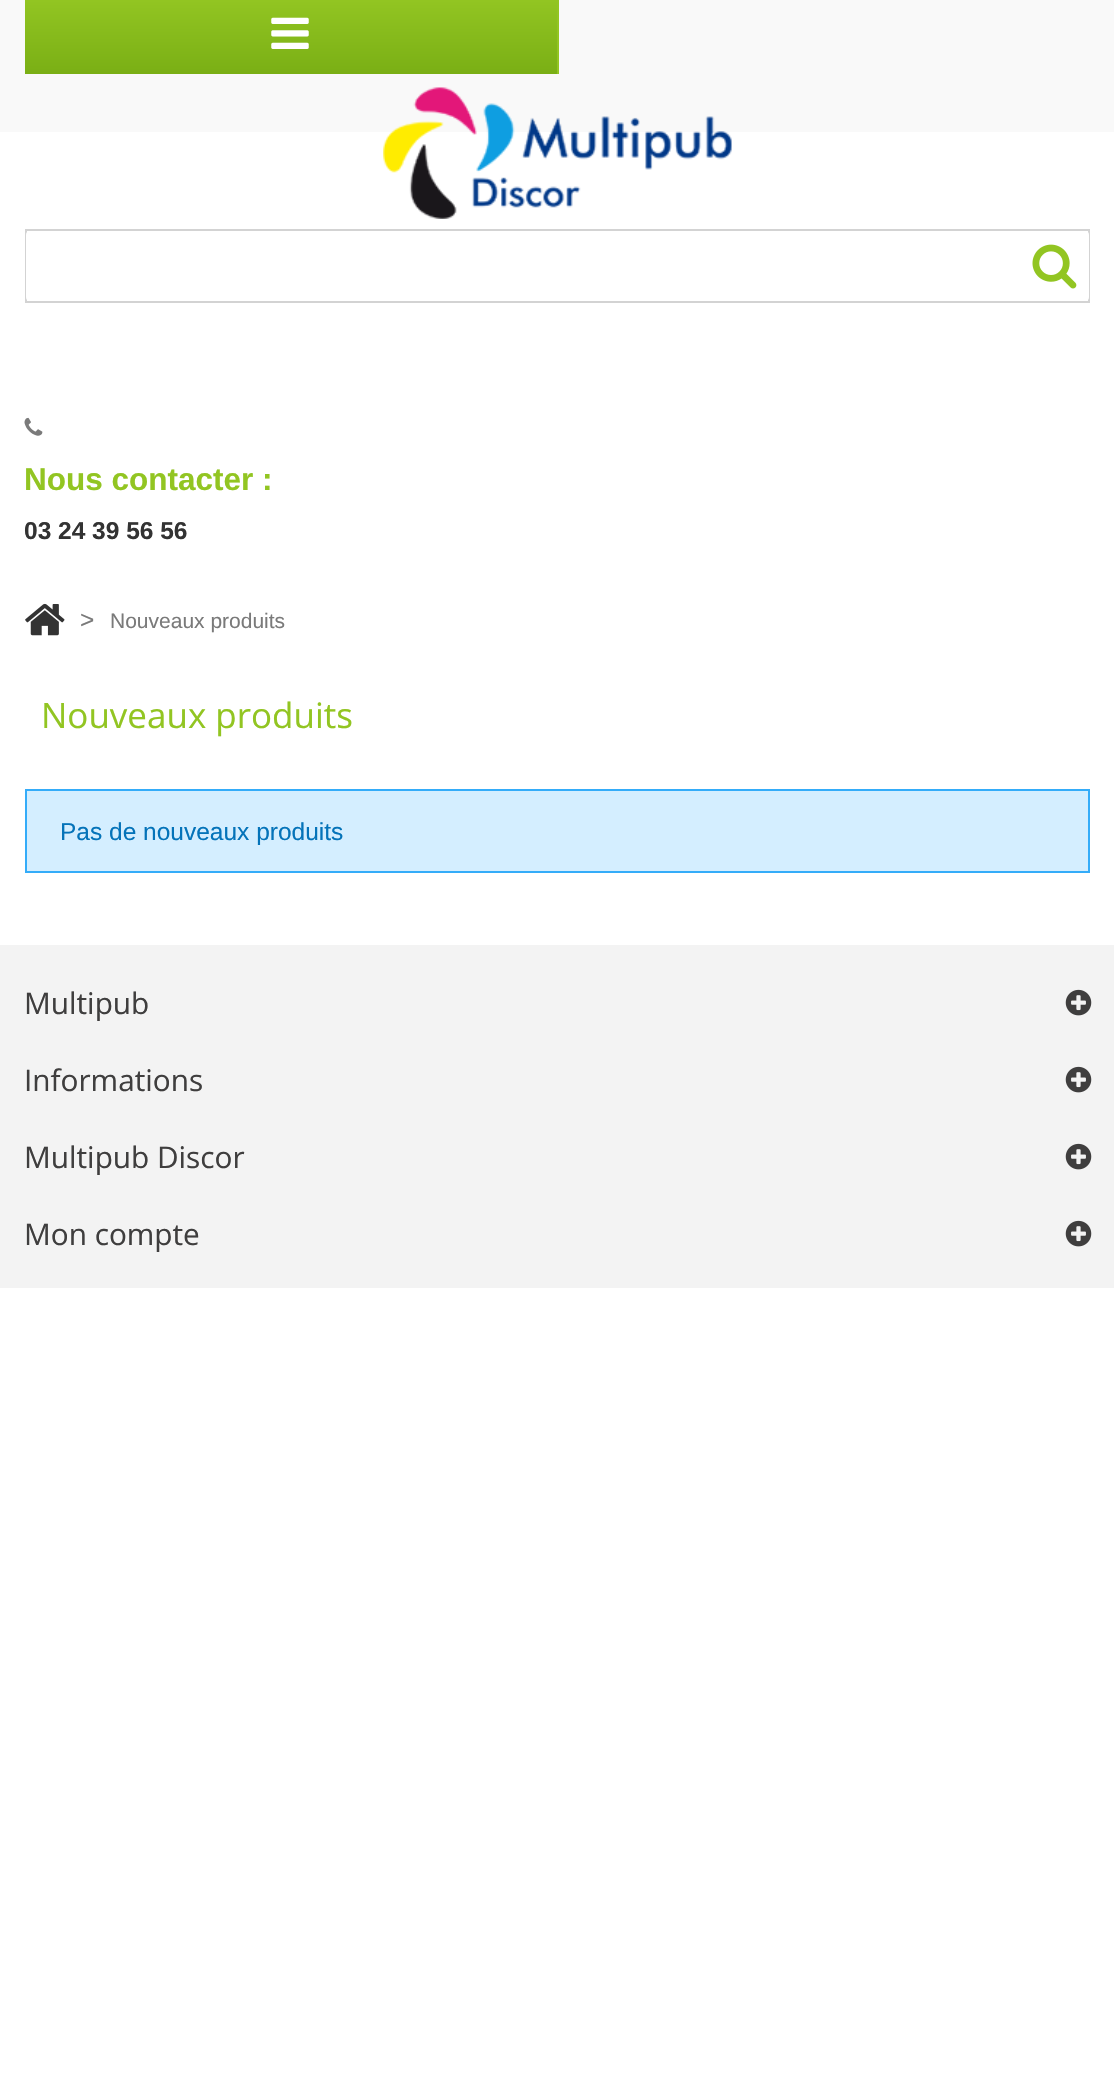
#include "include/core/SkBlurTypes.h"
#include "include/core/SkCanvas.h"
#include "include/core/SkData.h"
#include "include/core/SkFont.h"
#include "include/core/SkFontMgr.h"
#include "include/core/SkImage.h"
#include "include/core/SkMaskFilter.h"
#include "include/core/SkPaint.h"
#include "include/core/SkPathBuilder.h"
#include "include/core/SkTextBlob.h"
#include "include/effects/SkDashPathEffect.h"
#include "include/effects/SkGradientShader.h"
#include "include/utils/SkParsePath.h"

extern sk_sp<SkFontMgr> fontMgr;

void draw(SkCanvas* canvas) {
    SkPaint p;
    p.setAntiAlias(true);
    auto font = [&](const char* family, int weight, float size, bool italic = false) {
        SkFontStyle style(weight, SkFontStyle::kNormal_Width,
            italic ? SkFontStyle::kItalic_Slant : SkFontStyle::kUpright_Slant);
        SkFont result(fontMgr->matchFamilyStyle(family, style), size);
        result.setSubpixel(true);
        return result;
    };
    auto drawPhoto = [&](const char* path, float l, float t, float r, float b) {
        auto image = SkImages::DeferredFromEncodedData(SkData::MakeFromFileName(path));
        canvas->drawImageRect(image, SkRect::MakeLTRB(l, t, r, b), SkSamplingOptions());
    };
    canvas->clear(0xFFFFFFFF);
    p.setColor(0xFFF9F9F9);
    canvas->drawRect(SkRect::MakeLTRB(0, 0, 1114, 132), p);
    {
        const SkColor colors[] = {0xFF92C522, 0xFF7AAF15};
        const float stops[] = {0, 1};
        const SkPoint ends[] = {{291, 0}, {291, 74}};
        p.setShader(SkGradientShader::MakeLinear(ends, colors, stops, 2, SkTileMode::kClamp));
        p.setAlpha(255);
    }
    canvas->drawRect(SkRect::MakeLTRB(25, 0, 557, 74), p);
    p.setShader(nullptr);
    p.setColor(0xFF92C522);
    canvas->drawRect(SkRect::MakeLTRB(557, 0, 559, 74), p);
    drawPhoto("media/1.png", 271, 17, 309, 49);
    drawPhoto("media/2.png", 383, 87, 732, 219);
    p.setStyle(SkPaint::kStroke_Style);
    p.setStrokeWidth(2);
    p.setColor(0xFFD3D3D3);
    canvas->drawRect(SkRect::MakeLTRB(26, 230, 1089, 302), p);
    p.setStyle(SkPaint::kFill_Style);
    p.setColor(0xFFFFFFFF);
    canvas->drawRoundRect(SkRect::MakeLTRB(26, 231, 1089, 301), 4, 4, p);
    drawPhoto("media/3.png", 1032, 244, 1077, 289);
    drawPhoto("media/4.png", 24, 417, 43, 436);
    auto font1 = font("Liberation Sans", 700, 31.5f);
    p.setColor(0xFF92C522);
    canvas->drawString("Nous contacter :", 24, 490, font1, p);
    auto font2 = font("Liberation Sans", 700, 24.5f);
    p.setColor(0xFF333333);
    canvas->drawString("03 24 39 56 56", 24, 539, font2, p);
    drawPhoto("media/5.png", 25, 603, 65, 636);
    auto font3 = font("Liberation Sans", 400, 24.5f);
    p.setColor(0xFF7A7A7A);
    canvas->drawString(">", 80, 628, font3, p);
    auto font4 = font("Liberation Sans", 400, 21);
    canvas->drawString("Nouveaux produits", 110, 628, font4, p);
    auto font5 = font("Open Sans", 400, 35);
    p.setColor(0xFF92C522);
    canvas->drawString("Nouveaux produits", 41, 728, font5, p);
    p.setColor(0xFFD4EEFF);
    canvas->drawRect(SkRect::MakeLTRB(26, 790, 1089, 872), p);
    p.setStyle(SkPaint::kStroke_Style);
    p.setColor(0xFF34ACF9);
    canvas->drawRect(SkRect::MakeLTRB(26, 790, 1089, 872), p);
    p.setStyle(SkPaint::kFill_Style);
    p.setColor(0xFF0473B9);
    canvas->drawString("Pas de nouveaux produits", 60, 840, font3, p);
    p.setColor(0xFFF3F3F3);
    canvas->drawRect(SkRect::MakeLTRB(0, 945, 1114, 1288), p);
    auto font6 = font("Open Sans", 400, 29.75f);
    p.setColor(0xFF3F3E3E);
    canvas->drawString("Multipub", 24, 1014, font6, p);
    drawPhoto("media/6.png", 1065, 989, 1092, 1016);
    canvas->drawString("Informations", 24, 1091, font6, p);
    drawPhoto("media/6.png", 1065, 1066, 1092, 1093);
    canvas->drawString("Multipub Discor", 24, 1168, font6, p);
    drawPhoto("media/6.png", 1065, 1143, 1092, 1170);
    canvas->drawString("Mon compte", 24, 1245, font6, p);
    drawPhoto("media/6.png", 1065, 1220, 1092, 1247);
}
